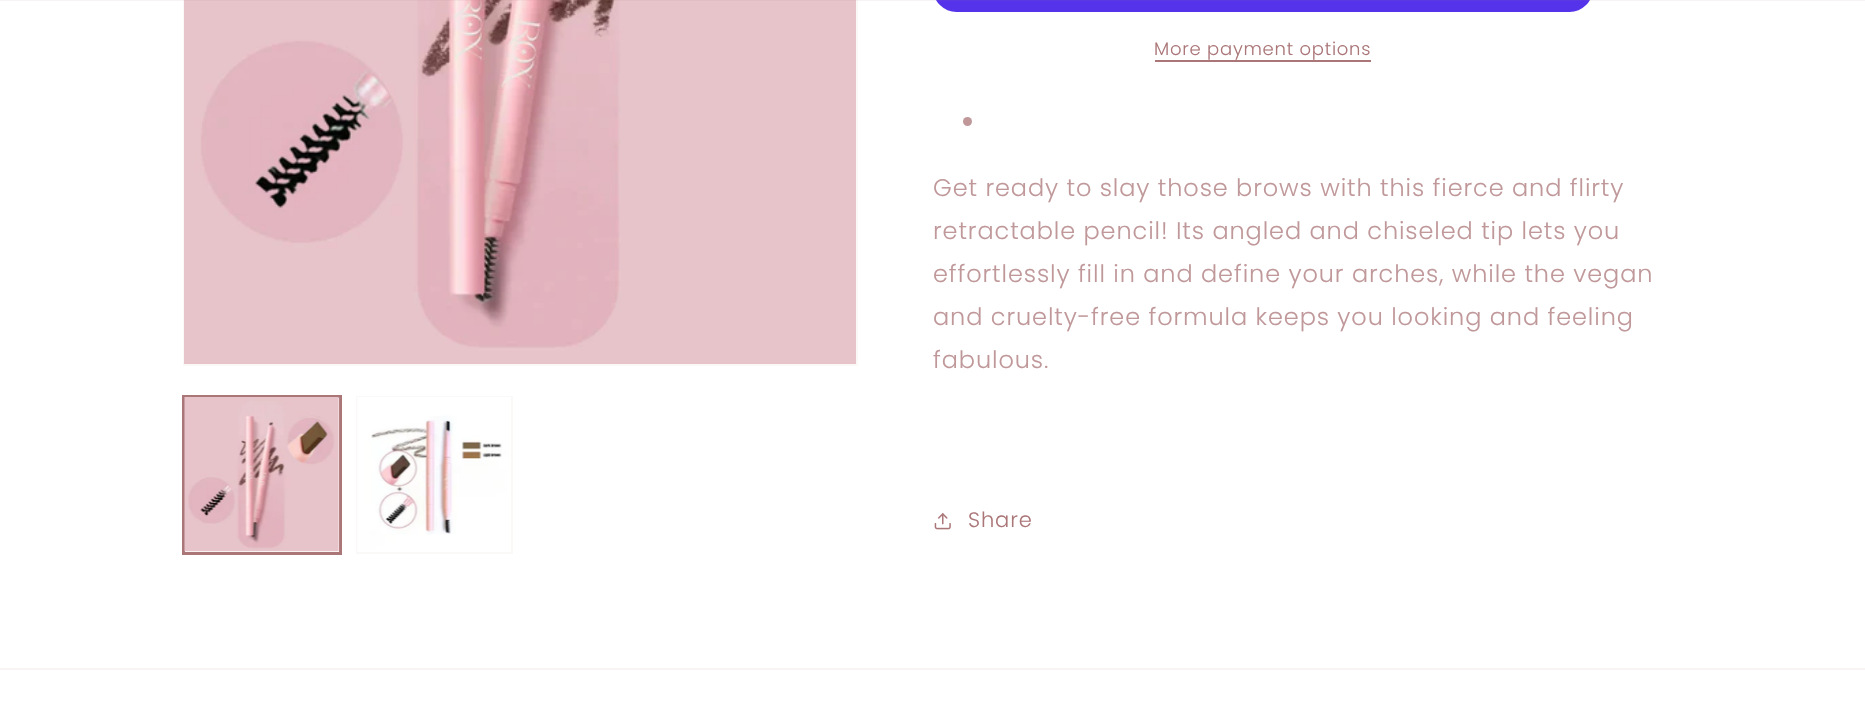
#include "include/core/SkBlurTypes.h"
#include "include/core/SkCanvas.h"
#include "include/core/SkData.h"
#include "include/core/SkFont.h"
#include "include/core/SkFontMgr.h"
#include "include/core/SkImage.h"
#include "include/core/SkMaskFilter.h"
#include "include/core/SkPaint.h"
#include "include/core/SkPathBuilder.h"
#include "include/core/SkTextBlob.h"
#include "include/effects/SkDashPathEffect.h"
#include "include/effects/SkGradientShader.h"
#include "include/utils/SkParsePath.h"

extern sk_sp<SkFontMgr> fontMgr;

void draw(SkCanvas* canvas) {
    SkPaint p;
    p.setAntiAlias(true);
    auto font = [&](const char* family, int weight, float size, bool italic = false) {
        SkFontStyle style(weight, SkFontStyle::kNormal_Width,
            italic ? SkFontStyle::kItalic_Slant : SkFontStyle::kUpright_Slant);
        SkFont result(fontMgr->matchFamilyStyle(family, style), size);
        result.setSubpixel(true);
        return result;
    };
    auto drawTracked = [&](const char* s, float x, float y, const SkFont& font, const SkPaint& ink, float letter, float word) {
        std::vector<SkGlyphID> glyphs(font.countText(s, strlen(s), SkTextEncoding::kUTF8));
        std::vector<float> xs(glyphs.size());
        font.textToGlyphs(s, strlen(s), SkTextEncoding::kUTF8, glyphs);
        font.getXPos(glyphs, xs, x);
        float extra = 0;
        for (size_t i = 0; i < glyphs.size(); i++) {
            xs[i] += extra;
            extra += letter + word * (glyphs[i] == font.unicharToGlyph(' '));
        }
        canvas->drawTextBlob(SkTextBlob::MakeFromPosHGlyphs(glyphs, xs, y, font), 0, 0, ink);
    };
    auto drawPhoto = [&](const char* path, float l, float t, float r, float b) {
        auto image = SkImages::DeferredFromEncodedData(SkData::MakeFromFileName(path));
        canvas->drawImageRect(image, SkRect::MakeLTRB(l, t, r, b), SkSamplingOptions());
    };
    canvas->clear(0xFFFFFFFF);
    p.setStyle(SkPaint::kStroke_Style);
    p.setStrokeWidth(2);
    p.setColor(0xFFFBF8F8);
    canvas->drawRect(SkRect::MakeLTRB(184, -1, 857, 365), p);
    drawPhoto("media/1.png", 184, 0, 856, 364);
    p.setStyle(SkPaint::kFill_Style);
    p.setColor(0xFF5433EB);
    canvas->drawRoundRect(SkRect::MakeLTRB(933, -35, 1593, 12), 34.5f, 34.5f, p);
    p.setColor(0x14AB7678);
    canvas->drawRect(SkRect::MakeLTRB(0, 0, 1865, 1), p);
    p.setStyle(SkPaint::kStroke_Style);
    p.setColor(0xFFAB7678);
    canvas->drawRect(SkRect::MakeLTRB(183, 396, 341, 554), p);
    canvas->drawRect(SkRect::MakeLTRB(184, 397, 340, 553), p);
    drawPhoto("media/2.png", 184, 397, 340, 552);
    p.setColor(0xFFFBF8F8);
    canvas->drawRect(SkRect::MakeLTRB(357, 397, 512, 553), p);
    drawPhoto("media/3.png", 357, 397, 511, 551);
    auto font1 = font("Poppins", 300, 18);
    p.setStyle(SkPaint::kFill_Style);
    p.setColor(0xFFAB7678);
    drawTracked("More payment options", 1154, 55, font1, p, 0.75f, 0);
    canvas->drawRect(SkRect::MakeLTRB(1155, 60, 1371, 62), p);
    p.setColor(0xFFC0989A);
    canvas->drawCircle(967.5f, 121.5f, 4.5f, p);
    auto font2 = font("Poppins", 300, 24);
    {
        const struct { const char* s; float x, y; } items[] = {
            {"Get ready to slay those brows with this fierce and flirty", 933, 196},
            {"retractable pencil! Its angled and chiseled tip lets you", 933, 239},
            {"effortlessly fill in and define your arches, while the vegan", 933, 282},
            {"and cruelty-free formula keeps you looking and feeling", 933, 325},
            {"fabulous.", 933, 368},
        };
        for (auto [s, x, y] : items) {
            drawTracked(s, x, y, font2, p, 0.9f, 0);
        }
    }
    drawPhoto("media/4.png", 934, 513, 951, 530);
    auto font3 = font("Poppins", 300, 21);
    p.setColor(0xFFAB7678);
    drawTracked("Share", 968, 527, font3, p, 0.9f, 0);
    p.setColor(0xFFF8F4F4);
    canvas->drawRect(SkRect::MakeLTRB(0, 668, 1865, 670), p);
}
